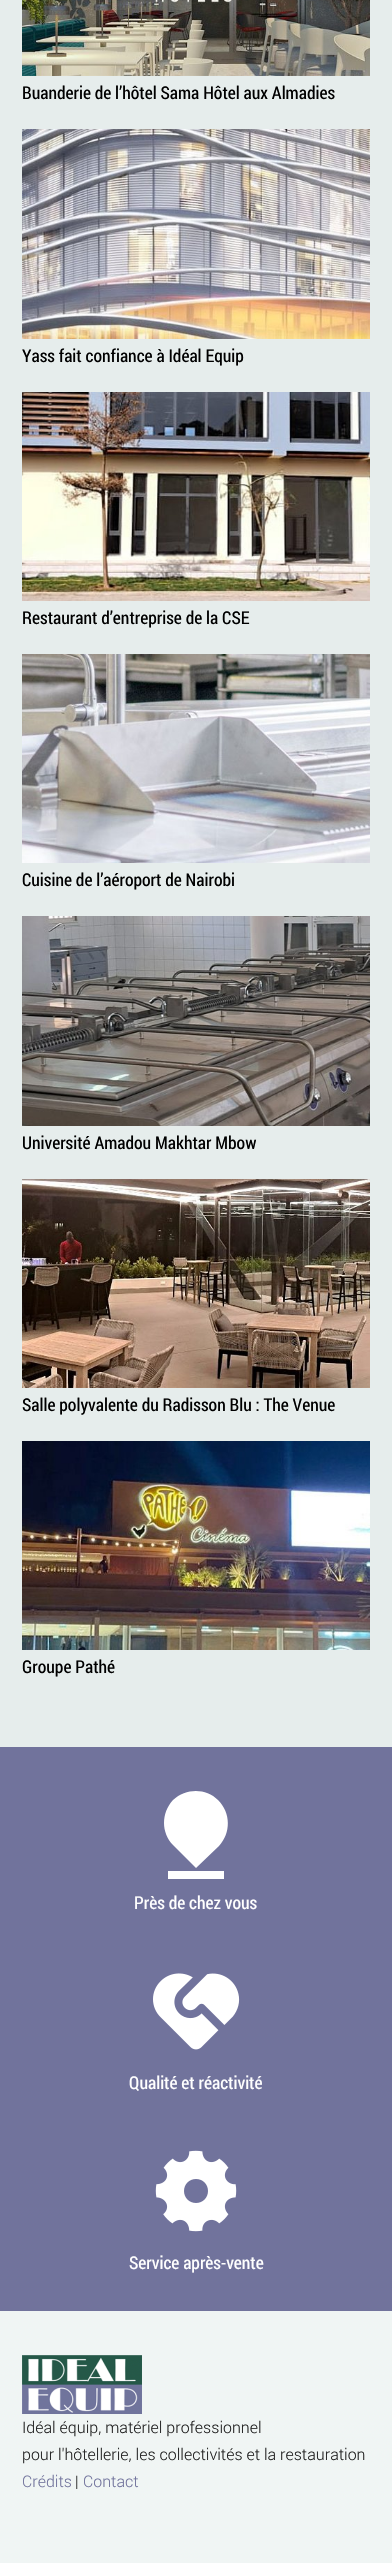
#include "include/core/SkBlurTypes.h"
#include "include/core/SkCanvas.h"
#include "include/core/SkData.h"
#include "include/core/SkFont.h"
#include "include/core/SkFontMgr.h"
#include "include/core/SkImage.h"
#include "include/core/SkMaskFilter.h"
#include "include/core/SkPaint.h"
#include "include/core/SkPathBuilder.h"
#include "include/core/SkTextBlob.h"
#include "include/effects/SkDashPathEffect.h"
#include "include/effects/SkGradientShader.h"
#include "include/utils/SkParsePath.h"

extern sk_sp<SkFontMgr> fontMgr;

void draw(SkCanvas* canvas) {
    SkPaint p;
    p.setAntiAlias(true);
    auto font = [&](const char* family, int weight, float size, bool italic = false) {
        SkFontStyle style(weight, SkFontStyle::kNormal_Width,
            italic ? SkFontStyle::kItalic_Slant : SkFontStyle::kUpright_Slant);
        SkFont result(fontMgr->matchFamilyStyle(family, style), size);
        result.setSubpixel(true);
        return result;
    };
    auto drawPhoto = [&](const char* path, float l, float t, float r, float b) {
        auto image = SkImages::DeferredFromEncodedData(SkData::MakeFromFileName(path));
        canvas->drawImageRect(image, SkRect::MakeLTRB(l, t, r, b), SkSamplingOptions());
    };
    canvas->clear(0xFFE6EDEC);
    drawPhoto("media/1.png", 22, 0, 370, 76);
    auto font1 = font("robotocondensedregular", 400, 17.6f);
    p.setColor(0xFF000000);
    canvas->drawString("Buanderie de l’hôtel Sama Hôtel aux Almadies", 22, 99, font1, p);
    drawPhoto("media/2.png", 22, 129, 370, 339);
    canvas->drawString("Yass fait confiance à Idéal Equip", 22, 362, font1, p);
    drawPhoto("media/3.png", 22, 392, 370, 601);
    canvas->drawString("Restaurant d’entreprise de la CSE", 22, 624, font1, p);
    drawPhoto("media/4.png", 22, 654, 370, 863);
    canvas->drawString("Cuisine de l’aéroport de Nairobi", 22, 886, font1, p);
    drawPhoto("media/5.png", 22, 916, 370, 1126);
    canvas->drawString("Université Amadou Makhtar Mbow", 22, 1149, font1, p);
    drawPhoto("media/6.png", 22, 1179, 370, 1388);
    canvas->drawString("Salle polyvalente du Radisson Blu : The Venue", 22, 1411, font1, p);
    drawPhoto("media/7.png", 22, 1441, 370, 1650);
    canvas->drawString("Groupe Pathé", 22, 1673, font1, p);
    p.setColor(0xFF71739C);
    canvas->drawRect(SkRect::MakeLTRB(0, 1747, 392, 2311), p);
    p.setColor(0xFFFFFFFF);
    canvas->drawPath(SkPathBuilder().moveTo(219, 1846).lineTo(196, 1868).lineTo(173, 1845).cubicTo(161, 1833, 161, 1813, 173, 1800).cubicTo(186, 1788, 206, 1788, 218, 1800).cubicTo(231, 1813, 231, 1833, 219, 1846).close().moveTo(168, 1871).lineTo(224, 1871).lineTo(224, 1879).lineTo(168, 1879).close().detach(), p);
    canvas->drawString("Près de chez vous", 134, 1909, font1, p);
    drawPhoto("media/8.png", 153, 1973, 240, 2050);
    canvas->drawString("Qualité et réactivité", 129, 2089, font1, p);
    drawPhoto("media/9.png", 155, 2150, 237, 2232);
    canvas->drawString("Service après-vente", 129, 2269, font1, p);
    p.setColor(0xFFF0F5F4);
    canvas->drawRect(SkRect::MakeLTRB(0, 2311, 392, 2563), p);
    drawPhoto("media/10.png", 22, 2355, 142, 2414);
    auto font2 = font("Roboto", 300, 16);
    p.setColor(0xFF222222);
    canvas->drawString("Idéal équip, matériel professionnel", 22, 2433, font2, p);
    canvas->drawString("pour l'hôtellerie, les collectivités et la restauration", 22, 2460, font2, p);
    p.setColor(0xFF71739C);
    canvas->drawString("Crédits", 22, 2487, font2, p);
    p.setColor(0xFF222222);
    canvas->drawString("|", 75, 2487, font2, p);
    p.setColor(0xFF71739C);
    canvas->drawString("Contact", 83, 2487, font2, p);
}
